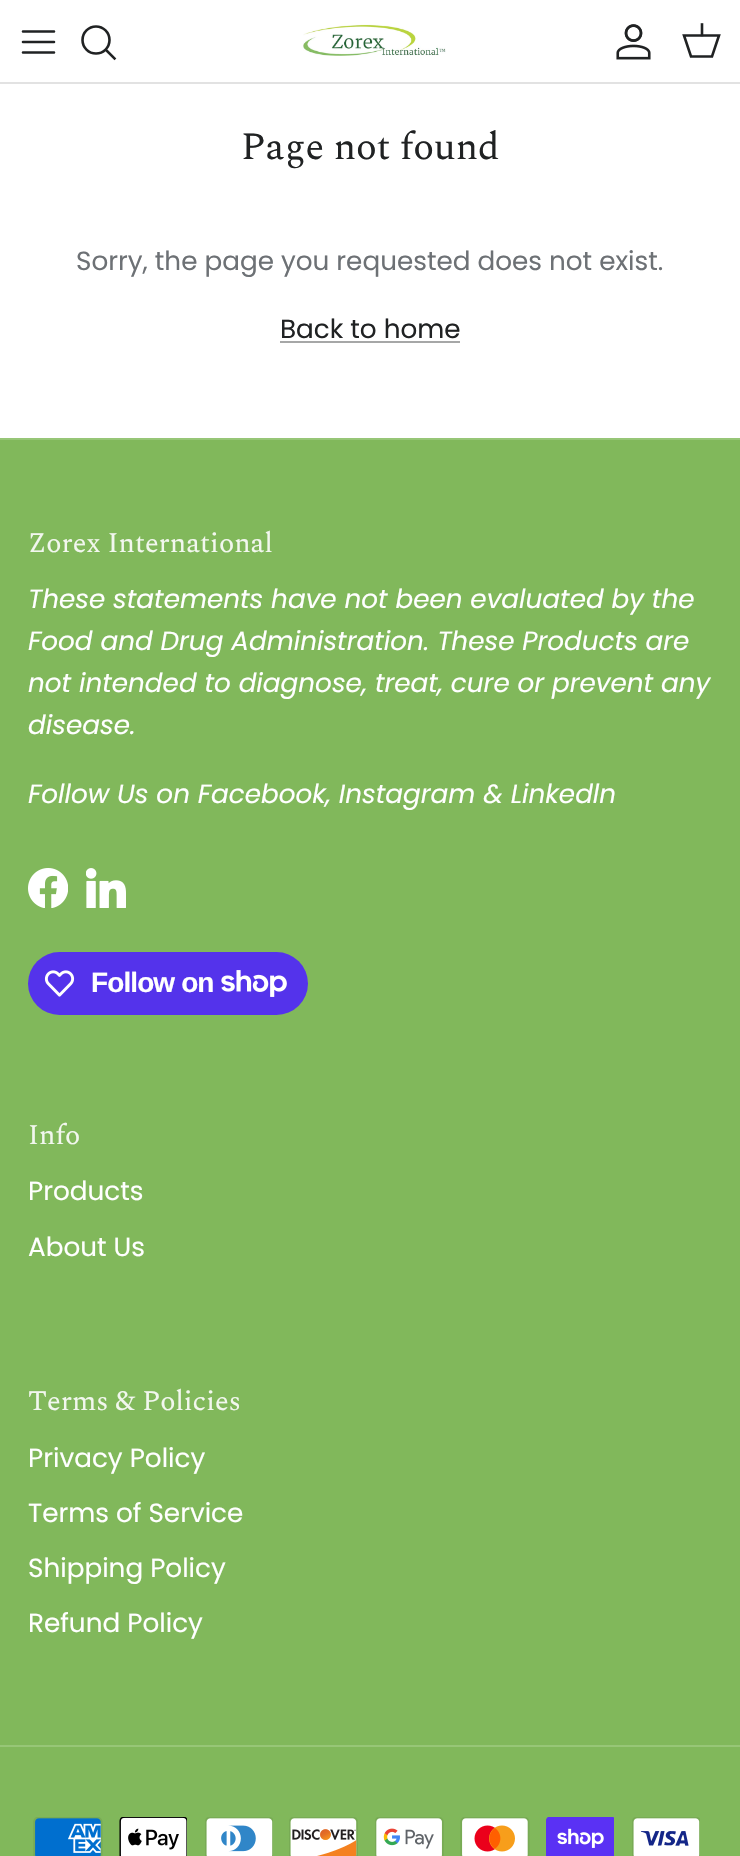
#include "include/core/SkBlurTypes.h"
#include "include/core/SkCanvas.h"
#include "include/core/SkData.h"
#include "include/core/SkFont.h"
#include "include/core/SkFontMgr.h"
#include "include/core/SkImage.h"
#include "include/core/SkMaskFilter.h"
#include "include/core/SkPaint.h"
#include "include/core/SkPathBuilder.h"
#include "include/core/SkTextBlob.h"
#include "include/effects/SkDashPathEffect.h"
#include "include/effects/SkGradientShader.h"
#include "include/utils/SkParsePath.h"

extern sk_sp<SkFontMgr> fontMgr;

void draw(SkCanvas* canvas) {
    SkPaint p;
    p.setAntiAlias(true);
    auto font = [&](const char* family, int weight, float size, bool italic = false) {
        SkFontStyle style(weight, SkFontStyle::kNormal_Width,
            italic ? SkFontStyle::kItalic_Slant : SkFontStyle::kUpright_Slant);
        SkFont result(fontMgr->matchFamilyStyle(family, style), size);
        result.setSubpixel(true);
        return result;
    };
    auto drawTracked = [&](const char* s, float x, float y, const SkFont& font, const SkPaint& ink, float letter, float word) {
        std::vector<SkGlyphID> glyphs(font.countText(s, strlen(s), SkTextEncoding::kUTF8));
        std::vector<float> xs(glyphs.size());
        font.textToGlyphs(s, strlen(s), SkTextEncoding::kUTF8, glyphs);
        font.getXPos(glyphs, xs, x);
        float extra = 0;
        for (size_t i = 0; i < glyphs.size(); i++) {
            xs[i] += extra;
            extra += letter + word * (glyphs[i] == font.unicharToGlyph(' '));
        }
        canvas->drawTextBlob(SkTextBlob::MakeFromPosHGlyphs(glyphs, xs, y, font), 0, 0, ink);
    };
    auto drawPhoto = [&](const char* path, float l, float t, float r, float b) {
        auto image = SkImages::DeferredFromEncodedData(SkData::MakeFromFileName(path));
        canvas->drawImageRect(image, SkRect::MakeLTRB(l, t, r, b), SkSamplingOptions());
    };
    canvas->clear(0xFFFFFFFF);
    p.setColor(0xFFE2E2E2);
    canvas->drawRect(SkRect::MakeLTRB(0, 82, 740, 84), p);
    p.setStyle(SkPaint::kStroke_Style);
    p.setStrokeWidth(2.6f);
    p.setStrokeCap(SkPaint::kRound_Cap);
    p.setStrokeJoin(SkPaint::kRound_Join);
    p.setColor(0xFF202223);
    canvas->drawPath(SkPathBuilder().moveTo(23, 42).lineTo(54, 42).moveTo(23, 31.5f).lineTo(54, 31.5f).moveTo(23, 52.5f).lineTo(54, 52.5f).detach(), p);
    p.setStrokeCap(SkPaint::kButt_Cap);
    p.setStrokeJoin(SkPaint::kMiter_Join);
    canvas->drawCircle(96, 40, 13.5f, p);
    p.setStrokeCap(SkPaint::kSquare_Cap);
    canvas->drawPath(SkPathBuilder().moveTo(106.5f, 50.5f).lineTo(114.5f, 58.5f).detach(), p);
    drawPhoto("media/1.png", 303, 24, 446, 56);
    drawPhoto("media/2.png", 616, 24, 651, 60);
    p.setStrokeCap(SkPaint::kButt_Cap);
    canvas->drawPath(SkPathBuilder().moveTo(684, 35.5f).lineTo(719, 35.5f).lineTo(712, 56.5f).lineTo(691, 56.5f).close().detach(), p);
    p.setStrokeCap(SkPaint::kSquare_Cap);
    canvas->drawPath(SkPathBuilder().moveTo(702, 35).lineTo(702, 24.5f).detach(), p);
    auto font1 = font("Spectral", 400, 38.5f);
    p.setStyle(SkPaint::kFill_Style);
    canvas->drawString("Page not found", 241, 159, font1, p);
    auto font2 = font("Poppins", 400, 26.25f);
    p.setColor(0xFF6D7175);
    canvas->drawString("Sorry, the page you requested does not exist.", 76, 270, font2, p);
    p.setColor(0xFF202223);
    canvas->drawString("Back to home", 280, 338, font2, p);
    {
        const struct { float l, t, r, b; SkColor color; } items[] = {
            {280, 341, 460, 343, 0xFFA6A7A7},
            {0, 440, 740, 1856, 0xFF81B85B},
            {0, 438, 740, 440, 0xFF97C677},
        };
        for (auto [l, t, r, b, color] : items) {
            p.setColor(color);
            canvas->drawRect(SkRect::MakeLTRB(l, t, r, b), p);
        }
    }
    auto font3 = font("Spectral", 400, 28.25f);
    p.setColor(0xFFF2F7EE);
    canvas->drawString("Zorex International", 28, 552, font3, p);
    auto font4 = font("Poppins", 400, 26.25f, true);
    p.setColor(0xFFFFFFFF);
    {
        const struct { const char* s; float x, y; } items[] = {
            {"These statements have not been evaluated by the", 28, 608},
            {"Food and Drug Administration. These Products are", 28, 650},
            {"not intended to diagnose, treat, cure or prevent any", 28, 692},
            {"disease.", 28, 734},
            {"Follow Us on Facebook, Instagram & Linkedln", 28, 803},
        };
        for (auto [s, x, y] : items) {
            canvas->drawString(s, x, y, font4, p);
        }
    }
    drawPhoto("media/3.png", 28, 868, 68, 908);
    drawPhoto("media/4.png", 86, 868, 126, 908);
    p.setColor(0xFF5433EB);
    canvas->drawRoundRect(SkRect::MakeLTRB(28, 952, 308, 1015), 31.5f, 31.5f, p);
    drawPhoto("media/5.png", 44, 970, 75, 997);
    auto font5 = font("Liberation Sans", 700, 28);
    p.setColor(0xFFFFFFFF);
    drawTracked("Follow on", 91, 992, font5, p, -0.9f, 0);
    drawPhoto("media/6.png", 221, 970, 287, 997);
    p.setColor(0xFFF2F7EE);
    canvas->drawString("Info", 28, 1144, font3, p);
    p.setColor(0xFFFFFFFF);
    canvas->drawString("Products", 28, 1200, font2, p);
    canvas->drawString("About Us", 28, 1256, font2, p);
    p.setColor(0xFFF2F7EE);
    canvas->drawString("Terms & Policies", 28, 1410, font3, p);
    p.setColor(0xFFFFFFFF);
    {
        const struct { const char* s; float x, y; } items[] = {
            {"Privacy Policy", 28, 1467},
            {"Terms of Service", 28, 1522},
            {"Shipping Policy", 28, 1577},
            {"Refund Policy", 28, 1632},
        };
        for (auto [s, x, y] : items) {
            canvas->drawString(s, x, y, font2, p);
        }
    }
    p.setColor(0xFF97C677);
    canvas->drawRect(SkRect::MakeLTRB(0, 1745, 740, 1747), p);
    drawPhoto("media/7.png", 33, 1817, 103, 1856);
    drawPhoto("media/8.png", 119, 1817, 187, 1856);
    drawPhoto("media/9.png", 205, 1817, 273, 1856);
    drawPhoto("media/10.png", 289, 1817, 358, 1856);
    drawPhoto("media/11.png", 375, 1817, 444, 1856);
    drawPhoto("media/12.png", 460, 1817, 530, 1856);
    drawPhoto("media/13.png", 546, 1817, 614, 1856);
    drawPhoto("media/14.png", 632, 1817, 700, 1856);
}
